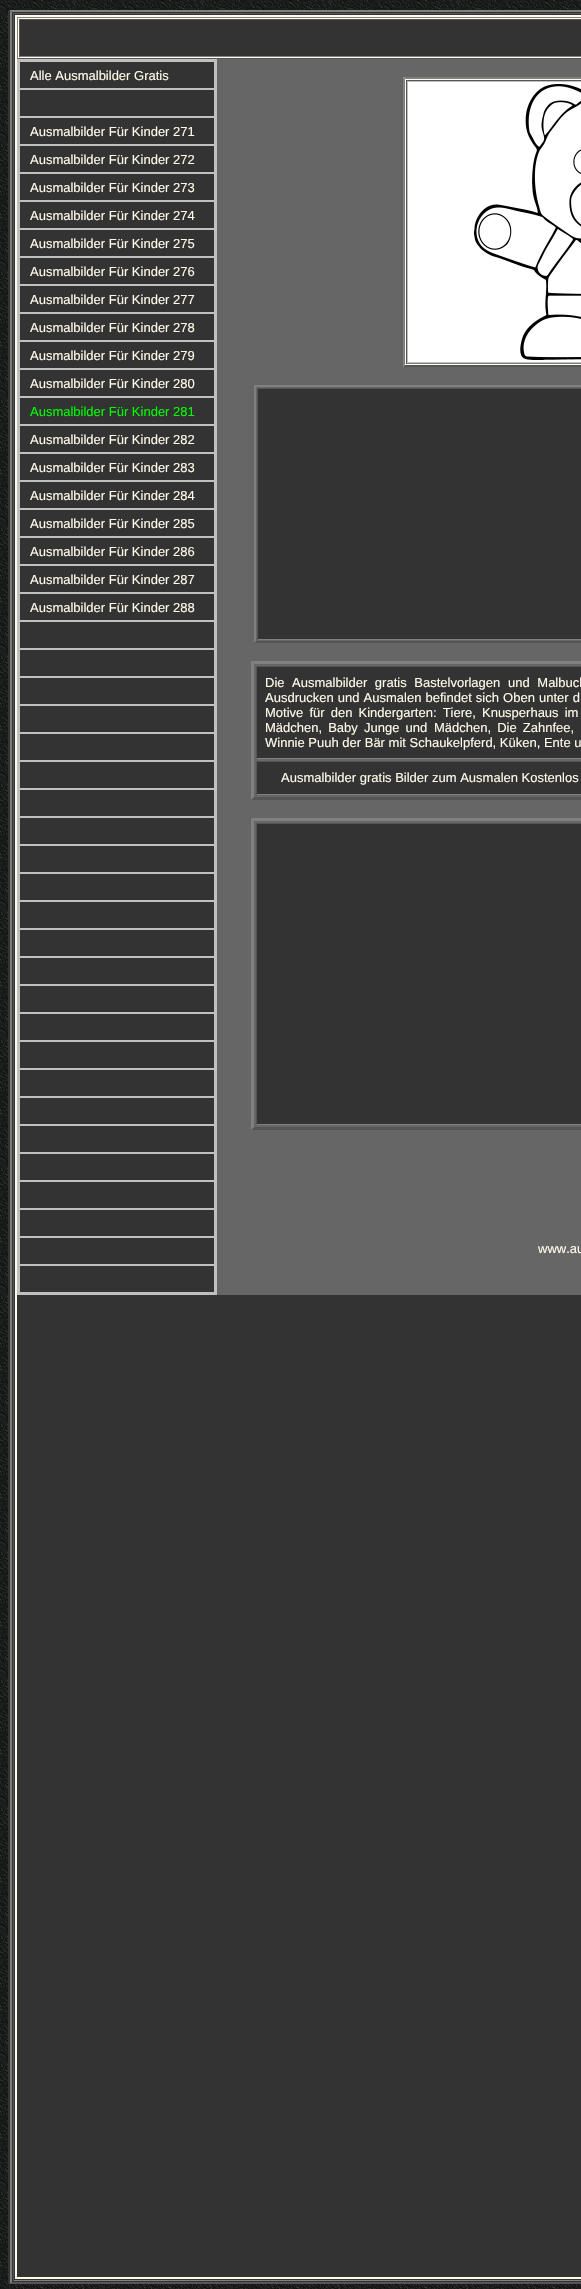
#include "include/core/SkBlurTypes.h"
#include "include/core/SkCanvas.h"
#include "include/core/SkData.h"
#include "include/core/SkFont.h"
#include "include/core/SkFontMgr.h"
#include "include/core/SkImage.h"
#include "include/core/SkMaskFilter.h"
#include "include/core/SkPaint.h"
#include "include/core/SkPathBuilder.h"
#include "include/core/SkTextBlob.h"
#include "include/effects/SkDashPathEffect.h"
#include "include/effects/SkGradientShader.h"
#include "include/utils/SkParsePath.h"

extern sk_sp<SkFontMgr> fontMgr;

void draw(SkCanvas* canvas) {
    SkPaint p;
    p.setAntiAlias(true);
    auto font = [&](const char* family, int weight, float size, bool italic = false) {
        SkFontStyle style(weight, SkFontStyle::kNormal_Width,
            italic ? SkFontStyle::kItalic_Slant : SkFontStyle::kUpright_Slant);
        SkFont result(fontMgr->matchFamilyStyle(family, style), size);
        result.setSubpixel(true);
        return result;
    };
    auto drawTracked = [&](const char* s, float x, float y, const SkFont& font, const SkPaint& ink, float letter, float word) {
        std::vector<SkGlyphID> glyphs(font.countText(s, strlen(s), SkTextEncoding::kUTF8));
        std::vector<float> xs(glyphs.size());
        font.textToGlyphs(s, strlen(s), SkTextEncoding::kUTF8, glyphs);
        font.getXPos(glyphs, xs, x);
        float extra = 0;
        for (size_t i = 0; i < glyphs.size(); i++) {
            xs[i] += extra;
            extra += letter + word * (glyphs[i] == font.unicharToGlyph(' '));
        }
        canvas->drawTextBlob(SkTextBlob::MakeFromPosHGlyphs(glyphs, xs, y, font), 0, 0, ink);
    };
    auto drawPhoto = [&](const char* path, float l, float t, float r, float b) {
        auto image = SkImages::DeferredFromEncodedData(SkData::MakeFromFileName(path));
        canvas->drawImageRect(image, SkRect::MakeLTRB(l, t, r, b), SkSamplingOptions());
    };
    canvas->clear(0xFFFFFFFF);
    drawPhoto("media/1.png", 0, 0, 581, 2289);
    p.setColor(0xFF333333);
    canvas->drawRect(SkRect::MakeLTRB(8, 10, 581, 2284), p);
    p.setColor(0xFF808080);
    canvas->drawPath(SkPathBuilder().moveTo(10, 10).lineTo(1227, 10).lineTo(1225, 12).lineTo(12, 12).close().detach(), p);
    p.setColor(0xFF555555);
    canvas->drawPath(SkPathBuilder().moveTo(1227, 2284).lineTo(10, 2284).lineTo(12, 2282).lineTo(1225, 2282).close().detach(), p);
    p.setColor(0xFF808080);
    canvas->drawPath(SkPathBuilder().moveTo(10, 2284).lineTo(10, 10).lineTo(12, 12).lineTo(12, 2282).close().detach(), p);
    {
        const struct { float l, t, r, b; SkColor color; } items[] = {
            {13, 13, 581, 14, 0xFF555555},
            {13, 2280, 581, 2281, 0xFF808080},
            {13, 13, 14, 2281, 0xFF555555},
            {15, 15, 581, 2279, 0xFFFFFBEA},
            {217, 59, 581, 1295, 0xFF666666},
            {17, 17, 581, 18, 0xFF808080},
            {17, 58, 581, 59, 0xFF555555},
            {17, 17, 18, 59, 0xFF808080},
            {20, 20, 581, 56, 0xFF333333},
            {19, 19, 581, 20, 0xFF555555},
            {19, 56, 581, 57, 0xFF808080},
            {19, 19, 20, 57, 0xFF555555},
        };
        for (auto [l, t, r, b, color] : items) {
            p.setColor(color);
            canvas->drawRect(SkRect::MakeLTRB(l, t, r, b), p);
        }
    }
    p.setStyle(SkPaint::kStroke_Style);
    p.setStrokeWidth(2);
    p.setColor(0xFFC0C0C0);
    canvas->drawRect(SkRect::MakeLTRB(18, 60, 216, 1294), p);
    p.setStyle(SkPaint::kFill_Style);
    p.setColor(0xFF333333);
    canvas->drawRect(SkRect::MakeLTRB(19.5f, 61.5f, 214.5f, 88.5f), p);
    p.setStyle(SkPaint::kStroke_Style);
    p.setStrokeWidth(1);
    p.setColor(0xFFC0C0C0);
    canvas->drawRect(SkRect::MakeLTRB(19.5f, 61.5f, 214.5f, 88.5f), p);
    auto font1 = font("Liberation Sans", 400, 13);
    p.setStyle(SkPaint::kFill_Style);
    p.setColor(0xFFFFFBEA);
    canvas->drawString("Alle Ausmalbilder Gratis", 30, 80, font1, p);
    p.setColor(0xFF333333);
    canvas->drawRect(SkRect::MakeLTRB(19.5f, 89.5f, 214.5f, 116.5f), p);
    p.setStyle(SkPaint::kStroke_Style);
    p.setColor(0xFFC0C0C0);
    canvas->drawRect(SkRect::MakeLTRB(19.5f, 89.5f, 214.5f, 116.5f), p);
    p.setStyle(SkPaint::kFill_Style);
    p.setColor(0xFF333333);
    canvas->drawRect(SkRect::MakeLTRB(19.5f, 117.5f, 214.5f, 144.5f), p);
    p.setStyle(SkPaint::kStroke_Style);
    p.setColor(0xFFC0C0C0);
    canvas->drawRect(SkRect::MakeLTRB(19.5f, 117.5f, 214.5f, 144.5f), p);
    p.setStyle(SkPaint::kFill_Style);
    p.setColor(0xFFFFFBEA);
    canvas->drawString("Ausmalbilder Für Kinder 271", 30, 136, font1, p);
    p.setColor(0xFF333333);
    canvas->drawRect(SkRect::MakeLTRB(19.5f, 145.5f, 214.5f, 172.5f), p);
    p.setStyle(SkPaint::kStroke_Style);
    p.setColor(0xFFC0C0C0);
    canvas->drawRect(SkRect::MakeLTRB(19.5f, 145.5f, 214.5f, 172.5f), p);
    p.setStyle(SkPaint::kFill_Style);
    p.setColor(0xFFFFFBEA);
    canvas->drawString("Ausmalbilder Für Kinder 272", 30, 164, font1, p);
    p.setColor(0xFF333333);
    canvas->drawRect(SkRect::MakeLTRB(19.5f, 173.5f, 214.5f, 200.5f), p);
    p.setStyle(SkPaint::kStroke_Style);
    p.setColor(0xFFC0C0C0);
    canvas->drawRect(SkRect::MakeLTRB(19.5f, 173.5f, 214.5f, 200.5f), p);
    p.setStyle(SkPaint::kFill_Style);
    p.setColor(0xFFFFFBEA);
    canvas->drawString("Ausmalbilder Für Kinder 273", 30, 192, font1, p);
    p.setColor(0xFF333333);
    canvas->drawRect(SkRect::MakeLTRB(19.5f, 201.5f, 214.5f, 228.5f), p);
    p.setStyle(SkPaint::kStroke_Style);
    p.setColor(0xFFC0C0C0);
    canvas->drawRect(SkRect::MakeLTRB(19.5f, 201.5f, 214.5f, 228.5f), p);
    p.setStyle(SkPaint::kFill_Style);
    p.setColor(0xFFFFFBEA);
    canvas->drawString("Ausmalbilder Für Kinder 274", 30, 220, font1, p);
    p.setColor(0xFF333333);
    canvas->drawRect(SkRect::MakeLTRB(19.5f, 229.5f, 214.5f, 256.5f), p);
    p.setStyle(SkPaint::kStroke_Style);
    p.setColor(0xFFC0C0C0);
    canvas->drawRect(SkRect::MakeLTRB(19.5f, 229.5f, 214.5f, 256.5f), p);
    p.setStyle(SkPaint::kFill_Style);
    p.setColor(0xFFFFFBEA);
    canvas->drawString("Ausmalbilder Für Kinder 275", 30, 248, font1, p);
    p.setColor(0xFF333333);
    canvas->drawRect(SkRect::MakeLTRB(19.5f, 257.5f, 214.5f, 284.5f), p);
    p.setStyle(SkPaint::kStroke_Style);
    p.setColor(0xFFC0C0C0);
    canvas->drawRect(SkRect::MakeLTRB(19.5f, 257.5f, 214.5f, 284.5f), p);
    p.setStyle(SkPaint::kFill_Style);
    p.setColor(0xFFFFFBEA);
    canvas->drawString("Ausmalbilder Für Kinder 276", 30, 276, font1, p);
    p.setColor(0xFF333333);
    canvas->drawRect(SkRect::MakeLTRB(19.5f, 285.5f, 214.5f, 312.5f), p);
    p.setStyle(SkPaint::kStroke_Style);
    p.setColor(0xFFC0C0C0);
    canvas->drawRect(SkRect::MakeLTRB(19.5f, 285.5f, 214.5f, 312.5f), p);
    p.setStyle(SkPaint::kFill_Style);
    p.setColor(0xFFFFFBEA);
    canvas->drawString("Ausmalbilder Für Kinder 277", 30, 304, font1, p);
    p.setColor(0xFF333333);
    canvas->drawRect(SkRect::MakeLTRB(19.5f, 313.5f, 214.5f, 340.5f), p);
    p.setStyle(SkPaint::kStroke_Style);
    p.setColor(0xFFC0C0C0);
    canvas->drawRect(SkRect::MakeLTRB(19.5f, 313.5f, 214.5f, 340.5f), p);
    p.setStyle(SkPaint::kFill_Style);
    p.setColor(0xFFFFFBEA);
    canvas->drawString("Ausmalbilder Für Kinder 278", 30, 332, font1, p);
    p.setColor(0xFF333333);
    canvas->drawRect(SkRect::MakeLTRB(19.5f, 341.5f, 214.5f, 368.5f), p);
    p.setStyle(SkPaint::kStroke_Style);
    p.setColor(0xFFC0C0C0);
    canvas->drawRect(SkRect::MakeLTRB(19.5f, 341.5f, 214.5f, 368.5f), p);
    p.setStyle(SkPaint::kFill_Style);
    p.setColor(0xFFFFFBEA);
    canvas->drawString("Ausmalbilder Für Kinder 279", 30, 360, font1, p);
    p.setColor(0xFF333333);
    canvas->drawRect(SkRect::MakeLTRB(19.5f, 369.5f, 214.5f, 396.5f), p);
    p.setStyle(SkPaint::kStroke_Style);
    p.setColor(0xFFC0C0C0);
    canvas->drawRect(SkRect::MakeLTRB(19.5f, 369.5f, 214.5f, 396.5f), p);
    p.setStyle(SkPaint::kFill_Style);
    p.setColor(0xFFFFFBEA);
    canvas->drawString("Ausmalbilder Für Kinder 280", 30, 388, font1, p);
    p.setColor(0xFF333333);
    canvas->drawRect(SkRect::MakeLTRB(19.5f, 397.5f, 214.5f, 424.5f), p);
    p.setStyle(SkPaint::kStroke_Style);
    p.setColor(0xFFC0C0C0);
    canvas->drawRect(SkRect::MakeLTRB(19.5f, 397.5f, 214.5f, 424.5f), p);
    p.setStyle(SkPaint::kFill_Style);
    p.setColor(0xFF00FF00);
    canvas->drawString("Ausmalbilder Für Kinder 281", 30, 416, font1, p);
    p.setColor(0xFF333333);
    canvas->drawRect(SkRect::MakeLTRB(19.5f, 425.5f, 214.5f, 452.5f), p);
    p.setStyle(SkPaint::kStroke_Style);
    p.setColor(0xFFC0C0C0);
    canvas->drawRect(SkRect::MakeLTRB(19.5f, 425.5f, 214.5f, 452.5f), p);
    p.setStyle(SkPaint::kFill_Style);
    p.setColor(0xFFFFFBEA);
    canvas->drawString("Ausmalbilder Für Kinder 282", 30, 444, font1, p);
    p.setColor(0xFF333333);
    canvas->drawRect(SkRect::MakeLTRB(19.5f, 453.5f, 214.5f, 480.5f), p);
    p.setStyle(SkPaint::kStroke_Style);
    p.setColor(0xFFC0C0C0);
    canvas->drawRect(SkRect::MakeLTRB(19.5f, 453.5f, 214.5f, 480.5f), p);
    p.setStyle(SkPaint::kFill_Style);
    p.setColor(0xFFFFFBEA);
    canvas->drawString("Ausmalbilder Für Kinder 283", 30, 472, font1, p);
    p.setColor(0xFF333333);
    canvas->drawRect(SkRect::MakeLTRB(19.5f, 481.5f, 214.5f, 508.5f), p);
    p.setStyle(SkPaint::kStroke_Style);
    p.setColor(0xFFC0C0C0);
    canvas->drawRect(SkRect::MakeLTRB(19.5f, 481.5f, 214.5f, 508.5f), p);
    p.setStyle(SkPaint::kFill_Style);
    p.setColor(0xFFFFFBEA);
    canvas->drawString("Ausmalbilder Für Kinder 284", 30, 500, font1, p);
    p.setColor(0xFF333333);
    canvas->drawRect(SkRect::MakeLTRB(19.5f, 509.5f, 214.5f, 536.5f), p);
    p.setStyle(SkPaint::kStroke_Style);
    p.setColor(0xFFC0C0C0);
    canvas->drawRect(SkRect::MakeLTRB(19.5f, 509.5f, 214.5f, 536.5f), p);
    p.setStyle(SkPaint::kFill_Style);
    p.setColor(0xFFFFFBEA);
    canvas->drawString("Ausmalbilder Für Kinder 285", 30, 528, font1, p);
    p.setColor(0xFF333333);
    canvas->drawRect(SkRect::MakeLTRB(19.5f, 537.5f, 214.5f, 564.5f), p);
    p.setStyle(SkPaint::kStroke_Style);
    p.setColor(0xFFC0C0C0);
    canvas->drawRect(SkRect::MakeLTRB(19.5f, 537.5f, 214.5f, 564.5f), p);
    p.setStyle(SkPaint::kFill_Style);
    p.setColor(0xFFFFFBEA);
    canvas->drawString("Ausmalbilder Für Kinder 286", 30, 556, font1, p);
    p.setColor(0xFF333333);
    canvas->drawRect(SkRect::MakeLTRB(19.5f, 565.5f, 214.5f, 592.5f), p);
    p.setStyle(SkPaint::kStroke_Style);
    p.setColor(0xFFC0C0C0);
    canvas->drawRect(SkRect::MakeLTRB(19.5f, 565.5f, 214.5f, 592.5f), p);
    p.setStyle(SkPaint::kFill_Style);
    p.setColor(0xFFFFFBEA);
    canvas->drawString("Ausmalbilder Für Kinder 287", 30, 584, font1, p);
    p.setColor(0xFF333333);
    canvas->drawRect(SkRect::MakeLTRB(19.5f, 593.5f, 214.5f, 620.5f), p);
    p.setStyle(SkPaint::kStroke_Style);
    p.setColor(0xFFC0C0C0);
    canvas->drawRect(SkRect::MakeLTRB(19.5f, 593.5f, 214.5f, 620.5f), p);
    p.setStyle(SkPaint::kFill_Style);
    p.setColor(0xFFFFFBEA);
    canvas->drawString("Ausmalbilder Für Kinder 288", 30, 612, font1, p);
    p.setColor(0xFF333333);
    canvas->drawRect(SkRect::MakeLTRB(19.5f, 621.5f, 214.5f, 648.5f), p);
    p.setStyle(SkPaint::kStroke_Style);
    p.setColor(0xFFC0C0C0);
    canvas->drawRect(SkRect::MakeLTRB(19.5f, 621.5f, 214.5f, 648.5f), p);
    p.setStyle(SkPaint::kFill_Style);
    p.setColor(0xFF333333);
    canvas->drawRect(SkRect::MakeLTRB(19.5f, 649.5f, 214.5f, 676.5f), p);
    p.setStyle(SkPaint::kStroke_Style);
    p.setColor(0xFFC0C0C0);
    canvas->drawRect(SkRect::MakeLTRB(19.5f, 649.5f, 214.5f, 676.5f), p);
    p.setStyle(SkPaint::kFill_Style);
    p.setColor(0xFF333333);
    canvas->drawRect(SkRect::MakeLTRB(19.5f, 677.5f, 214.5f, 704.5f), p);
    p.setStyle(SkPaint::kStroke_Style);
    p.setColor(0xFFC0C0C0);
    canvas->drawRect(SkRect::MakeLTRB(19.5f, 677.5f, 214.5f, 704.5f), p);
    p.setStyle(SkPaint::kFill_Style);
    p.setColor(0xFF333333);
    canvas->drawRect(SkRect::MakeLTRB(19.5f, 705.5f, 214.5f, 732.5f), p);
    p.setStyle(SkPaint::kStroke_Style);
    p.setColor(0xFFC0C0C0);
    canvas->drawRect(SkRect::MakeLTRB(19.5f, 705.5f, 214.5f, 732.5f), p);
    p.setStyle(SkPaint::kFill_Style);
    p.setColor(0xFF333333);
    canvas->drawRect(SkRect::MakeLTRB(19.5f, 733.5f, 214.5f, 760.5f), p);
    p.setStyle(SkPaint::kStroke_Style);
    p.setColor(0xFFC0C0C0);
    canvas->drawRect(SkRect::MakeLTRB(19.5f, 733.5f, 214.5f, 760.5f), p);
    p.setStyle(SkPaint::kFill_Style);
    p.setColor(0xFF333333);
    canvas->drawRect(SkRect::MakeLTRB(19.5f, 761.5f, 214.5f, 788.5f), p);
    p.setStyle(SkPaint::kStroke_Style);
    p.setColor(0xFFC0C0C0);
    canvas->drawRect(SkRect::MakeLTRB(19.5f, 761.5f, 214.5f, 788.5f), p);
    p.setStyle(SkPaint::kFill_Style);
    p.setColor(0xFF333333);
    canvas->drawRect(SkRect::MakeLTRB(19.5f, 789.5f, 214.5f, 816.5f), p);
    p.setStyle(SkPaint::kStroke_Style);
    p.setColor(0xFFC0C0C0);
    canvas->drawRect(SkRect::MakeLTRB(19.5f, 789.5f, 214.5f, 816.5f), p);
    p.setStyle(SkPaint::kFill_Style);
    p.setColor(0xFF333333);
    canvas->drawRect(SkRect::MakeLTRB(19.5f, 817.5f, 214.5f, 844.5f), p);
    p.setStyle(SkPaint::kStroke_Style);
    p.setColor(0xFFC0C0C0);
    canvas->drawRect(SkRect::MakeLTRB(19.5f, 817.5f, 214.5f, 844.5f), p);
    p.setStyle(SkPaint::kFill_Style);
    p.setColor(0xFF333333);
    canvas->drawRect(SkRect::MakeLTRB(19.5f, 845.5f, 214.5f, 872.5f), p);
    p.setStyle(SkPaint::kStroke_Style);
    p.setColor(0xFFC0C0C0);
    canvas->drawRect(SkRect::MakeLTRB(19.5f, 845.5f, 214.5f, 872.5f), p);
    p.setStyle(SkPaint::kFill_Style);
    p.setColor(0xFF333333);
    canvas->drawRect(SkRect::MakeLTRB(19.5f, 873.5f, 214.5f, 900.5f), p);
    p.setStyle(SkPaint::kStroke_Style);
    p.setColor(0xFFC0C0C0);
    canvas->drawRect(SkRect::MakeLTRB(19.5f, 873.5f, 214.5f, 900.5f), p);
    p.setStyle(SkPaint::kFill_Style);
    p.setColor(0xFF333333);
    canvas->drawRect(SkRect::MakeLTRB(19.5f, 901.5f, 214.5f, 928.5f), p);
    p.setStyle(SkPaint::kStroke_Style);
    p.setColor(0xFFC0C0C0);
    canvas->drawRect(SkRect::MakeLTRB(19.5f, 901.5f, 214.5f, 928.5f), p);
    p.setStyle(SkPaint::kFill_Style);
    p.setColor(0xFF333333);
    canvas->drawRect(SkRect::MakeLTRB(19.5f, 929.5f, 214.5f, 956.5f), p);
    p.setStyle(SkPaint::kStroke_Style);
    p.setColor(0xFFC0C0C0);
    canvas->drawRect(SkRect::MakeLTRB(19.5f, 929.5f, 214.5f, 956.5f), p);
    p.setStyle(SkPaint::kFill_Style);
    p.setColor(0xFF333333);
    canvas->drawRect(SkRect::MakeLTRB(19.5f, 957.5f, 214.5f, 984.5f), p);
    p.setStyle(SkPaint::kStroke_Style);
    p.setColor(0xFFC0C0C0);
    canvas->drawRect(SkRect::MakeLTRB(19.5f, 957.5f, 214.5f, 984.5f), p);
    p.setStyle(SkPaint::kFill_Style);
    p.setColor(0xFF333333);
    canvas->drawRect(SkRect::MakeLTRB(19.5f, 985.5f, 214.5f, 1012.5f), p);
    p.setStyle(SkPaint::kStroke_Style);
    p.setColor(0xFFC0C0C0);
    canvas->drawRect(SkRect::MakeLTRB(19.5f, 985.5f, 214.5f, 1012.5f), p);
    p.setStyle(SkPaint::kFill_Style);
    p.setColor(0xFF333333);
    canvas->drawRect(SkRect::MakeLTRB(19.5f, 1013.5f, 214.5f, 1040.5f), p);
    p.setStyle(SkPaint::kStroke_Style);
    p.setColor(0xFFC0C0C0);
    canvas->drawRect(SkRect::MakeLTRB(19.5f, 1013.5f, 214.5f, 1040.5f), p);
    p.setStyle(SkPaint::kFill_Style);
    p.setColor(0xFF333333);
    canvas->drawRect(SkRect::MakeLTRB(19.5f, 1041.5f, 214.5f, 1068.5f), p);
    p.setStyle(SkPaint::kStroke_Style);
    p.setColor(0xFFC0C0C0);
    canvas->drawRect(SkRect::MakeLTRB(19.5f, 1041.5f, 214.5f, 1068.5f), p);
    p.setStyle(SkPaint::kFill_Style);
    p.setColor(0xFF333333);
    canvas->drawRect(SkRect::MakeLTRB(19.5f, 1069.5f, 214.5f, 1096.5f), p);
    p.setStyle(SkPaint::kStroke_Style);
    p.setColor(0xFFC0C0C0);
    canvas->drawRect(SkRect::MakeLTRB(19.5f, 1069.5f, 214.5f, 1096.5f), p);
    p.setStyle(SkPaint::kFill_Style);
    p.setColor(0xFF333333);
    canvas->drawRect(SkRect::MakeLTRB(19.5f, 1097.5f, 214.5f, 1124.5f), p);
    p.setStyle(SkPaint::kStroke_Style);
    p.setColor(0xFFC0C0C0);
    canvas->drawRect(SkRect::MakeLTRB(19.5f, 1097.5f, 214.5f, 1124.5f), p);
    p.setStyle(SkPaint::kFill_Style);
    p.setColor(0xFF333333);
    canvas->drawRect(SkRect::MakeLTRB(19.5f, 1125.5f, 214.5f, 1152.5f), p);
    p.setStyle(SkPaint::kStroke_Style);
    p.setColor(0xFFC0C0C0);
    canvas->drawRect(SkRect::MakeLTRB(19.5f, 1125.5f, 214.5f, 1152.5f), p);
    p.setStyle(SkPaint::kFill_Style);
    p.setColor(0xFF333333);
    canvas->drawRect(SkRect::MakeLTRB(19.5f, 1153.5f, 214.5f, 1180.5f), p);
    p.setStyle(SkPaint::kStroke_Style);
    p.setColor(0xFFC0C0C0);
    canvas->drawRect(SkRect::MakeLTRB(19.5f, 1153.5f, 214.5f, 1180.5f), p);
    p.setStyle(SkPaint::kFill_Style);
    p.setColor(0xFF333333);
    canvas->drawRect(SkRect::MakeLTRB(19.5f, 1181.5f, 214.5f, 1208.5f), p);
    p.setStyle(SkPaint::kStroke_Style);
    p.setColor(0xFFC0C0C0);
    canvas->drawRect(SkRect::MakeLTRB(19.5f, 1181.5f, 214.5f, 1208.5f), p);
    p.setStyle(SkPaint::kFill_Style);
    p.setColor(0xFF333333);
    canvas->drawRect(SkRect::MakeLTRB(19.5f, 1209.5f, 214.5f, 1236.5f), p);
    p.setStyle(SkPaint::kStroke_Style);
    p.setColor(0xFFC0C0C0);
    canvas->drawRect(SkRect::MakeLTRB(19.5f, 1209.5f, 214.5f, 1236.5f), p);
    p.setStyle(SkPaint::kFill_Style);
    p.setColor(0xFF333333);
    canvas->drawRect(SkRect::MakeLTRB(19.5f, 1237.5f, 214.5f, 1264.5f), p);
    p.setStyle(SkPaint::kStroke_Style);
    p.setColor(0xFFC0C0C0);
    canvas->drawRect(SkRect::MakeLTRB(19.5f, 1237.5f, 214.5f, 1264.5f), p);
    p.setStyle(SkPaint::kFill_Style);
    p.setColor(0xFF333333);
    canvas->drawRect(SkRect::MakeLTRB(19.5f, 1265.5f, 214.5f, 1292.5f), p);
    p.setStyle(SkPaint::kStroke_Style);
    p.setColor(0xFFC0C0C0);
    canvas->drawRect(SkRect::MakeLTRB(19.5f, 1265.5f, 214.5f, 1292.5f), p);
    p.setStyle(SkPaint::kFill_Style);
    p.setColor(0xFFFFFBEA);
    canvas->drawRect(SkRect::MakeLTRB(403, 77, 581, 367), p);
    p.setColor(0xFF808080);
    canvas->drawPath(SkPathBuilder().moveTo(403, 77).lineTo(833, 77).lineTo(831, 79).lineTo(405, 79).close().detach(), p);
    p.setColor(0xFF555555);
    canvas->drawPath(SkPathBuilder().moveTo(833, 367).lineTo(403, 367).lineTo(405, 365).lineTo(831, 365).close().detach(), p);
    p.setColor(0xFF808080);
    canvas->drawPath(SkPathBuilder().moveTo(403, 367).lineTo(403, 77).lineTo(405, 79).lineTo(405, 365).close().detach(), p);
    {
        const struct { float l, t, r, b; SkColor color; } items[] = {
            {407, 81, 581, 363, 0xFFC0C0C0},
            {406, 80, 581, 81, 0xFF555555},
            {406, 363, 581, 364, 0xFF808080},
            {406, 80, 407, 364, 0xFF555555},
        };
        for (auto [l, t, r, b, color] : items) {
            p.setColor(color);
            canvas->drawRect(SkRect::MakeLTRB(l, t, r, b), p);
        }
    }
    drawPhoto("media/2.png", 408, 82, 581, 362);
    p.setColor(0xFF808080);
    canvas->drawPath(SkPathBuilder().moveTo(254, 385).lineTo(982, 385).lineTo(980, 387).lineTo(256, 387).close().detach(), p);
    p.setColor(0xFF555555);
    canvas->drawPath(SkPathBuilder().moveTo(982, 643).lineTo(254, 643).lineTo(256, 641).lineTo(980, 641).close().detach(), p);
    p.setColor(0xFF808080);
    canvas->drawPath(SkPathBuilder().moveTo(254, 643).lineTo(254, 385).lineTo(256, 387).lineTo(256, 641).close().detach(), p);
    {
        const struct { float l, t, r, b; SkColor color; } items[] = {
            {258, 389, 581, 639, 0xFF333333},
            {257, 388, 581, 389, 0xFF555555},
            {257, 639, 581, 640, 0xFF808080},
            {257, 388, 258, 640, 0xFF555555},
        };
        for (auto [l, t, r, b, color] : items) {
            p.setColor(color);
            canvas->drawRect(SkRect::MakeLTRB(l, t, r, b), p);
        }
    }
    p.setColor(0xFF808080);
    canvas->drawPath(SkPathBuilder().moveTo(251, 661).lineTo(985, 661).lineTo(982, 664).lineTo(254, 664).close().detach(), p);
    p.setColor(0xFF555555);
    canvas->drawPath(SkPathBuilder().moveTo(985, 800).lineTo(251, 800).lineTo(254, 797).lineTo(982, 797).close().detach(), p);
    p.setColor(0xFF808080);
    canvas->drawPath(SkPathBuilder().moveTo(251, 800).lineTo(251, 661).lineTo(254, 664).lineTo(254, 797).close().detach(), p);
    {
        const struct { float l, t, r, b; SkColor color; } items[] = {
            {257, 667, 581, 758, 0xFF333333},
            {256, 666, 581, 667, 0xFF555555},
            {256, 758, 581, 759, 0xFF808080},
            {256, 666, 257, 759, 0xFF555555},
        };
        for (auto [l, t, r, b, color] : items) {
            p.setColor(color);
            canvas->drawRect(SkRect::MakeLTRB(l, t, r, b), p);
        }
    }
    p.setColor(0xFFFFFBEA);
    drawTracked("Die Ausmalbilder gratis Bastelvorlagen", 265, 687, font1, p, 0, 4);
    drawTracked("und Malbuch", 508, 687, font1, p, 0, 4);
    drawTracked("Ausdrucken und Ausmalen befindet sich Oben unter d", 265, 702, font1, p, 0, 0.5f);
    {
        const struct { const char* s; float x, y; } items[] = {
            {"Motive für den Kindergarten: Tiere, Knusperhaus im", 265, 717},
            {"Mädchen, Baby Junge und", 265, 732},
            {"Mädchen, Die Zahnfee,", 434, 732},
        };
        for (auto [s, x, y] : items) {
            drawTracked(s, x, y, font1, p, 0, 2.5f);
        }
    }
    canvas->drawString("Winnie Puuh der Bär mit Schaukelpferd, Küken, Ente u", 265, 747, font1, p);
    {
        const struct { float l, t, r, b; SkColor color; } items[] = {
            {257, 762, 581, 794, 0xFF333333},
            {256, 761, 581, 762, 0xFF555555},
            {256, 794, 581, 795, 0xFF808080},
            {256, 761, 257, 795, 0xFF555555},
        };
        for (auto [l, t, r, b, color] : items) {
            p.setColor(color);
            canvas->drawRect(SkRect::MakeLTRB(l, t, r, b), p);
        }
    }
    p.setColor(0xFFFFFBEA);
    canvas->drawString("Ausmalbilder gratis Bilder zum Ausmalen Kostenlos", 281, 782, font1, p);
    p.setColor(0xFF808080);
    canvas->drawPath(SkPathBuilder().moveTo(251, 818).lineTo(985, 818).lineTo(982, 821).lineTo(254, 821).close().detach(), p);
    p.setColor(0xFF555555);
    canvas->drawPath(SkPathBuilder().moveTo(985, 1130).lineTo(251, 1130).lineTo(254, 1127).lineTo(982, 1127).close().detach(), p);
    p.setColor(0xFF808080);
    canvas->drawPath(SkPathBuilder().moveTo(251, 1130).lineTo(251, 818).lineTo(254, 821).lineTo(254, 1127).close().detach(), p);
    {
        const struct { float l, t, r, b; SkColor color; } items[] = {
            {257, 824, 581, 1124, 0xFF333333},
            {256, 823, 581, 824, 0xFF555555},
            {256, 1124, 581, 1125, 0xFF808080},
            {256, 823, 257, 1125, 0xFF555555},
        };
        for (auto [l, t, r, b, color] : items) {
            p.setColor(color);
            canvas->drawRect(SkRect::MakeLTRB(l, t, r, b), p);
        }
    }
    p.setColor(0xFFFFFBEA);
    canvas->drawString("www.au", 538, 1253, font1, p);
    p.setColor(0xFF333333);
    canvas->drawRect(SkRect::MakeLTRB(17, 1295, 581, 2277), p);
}
